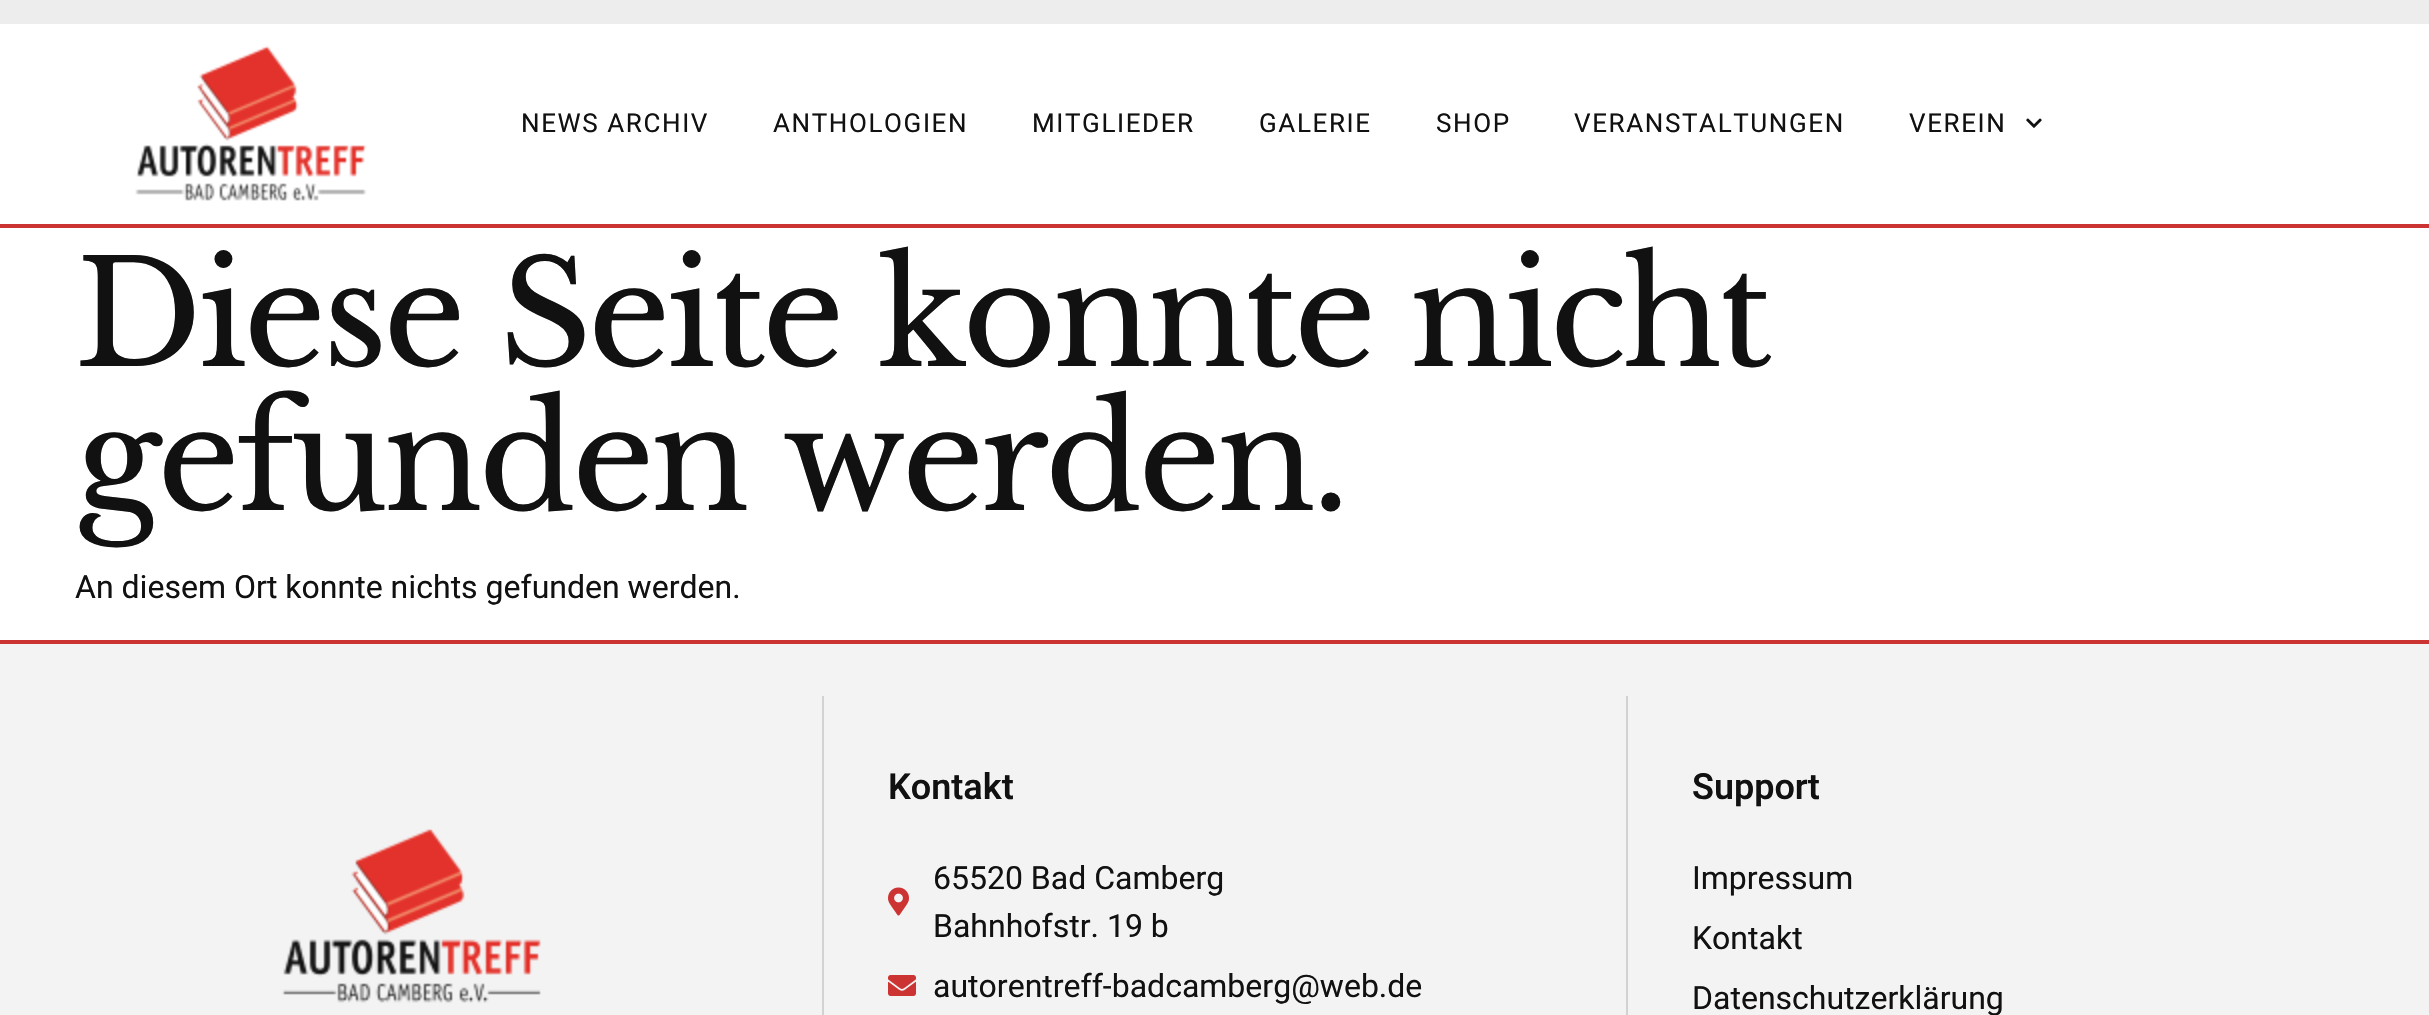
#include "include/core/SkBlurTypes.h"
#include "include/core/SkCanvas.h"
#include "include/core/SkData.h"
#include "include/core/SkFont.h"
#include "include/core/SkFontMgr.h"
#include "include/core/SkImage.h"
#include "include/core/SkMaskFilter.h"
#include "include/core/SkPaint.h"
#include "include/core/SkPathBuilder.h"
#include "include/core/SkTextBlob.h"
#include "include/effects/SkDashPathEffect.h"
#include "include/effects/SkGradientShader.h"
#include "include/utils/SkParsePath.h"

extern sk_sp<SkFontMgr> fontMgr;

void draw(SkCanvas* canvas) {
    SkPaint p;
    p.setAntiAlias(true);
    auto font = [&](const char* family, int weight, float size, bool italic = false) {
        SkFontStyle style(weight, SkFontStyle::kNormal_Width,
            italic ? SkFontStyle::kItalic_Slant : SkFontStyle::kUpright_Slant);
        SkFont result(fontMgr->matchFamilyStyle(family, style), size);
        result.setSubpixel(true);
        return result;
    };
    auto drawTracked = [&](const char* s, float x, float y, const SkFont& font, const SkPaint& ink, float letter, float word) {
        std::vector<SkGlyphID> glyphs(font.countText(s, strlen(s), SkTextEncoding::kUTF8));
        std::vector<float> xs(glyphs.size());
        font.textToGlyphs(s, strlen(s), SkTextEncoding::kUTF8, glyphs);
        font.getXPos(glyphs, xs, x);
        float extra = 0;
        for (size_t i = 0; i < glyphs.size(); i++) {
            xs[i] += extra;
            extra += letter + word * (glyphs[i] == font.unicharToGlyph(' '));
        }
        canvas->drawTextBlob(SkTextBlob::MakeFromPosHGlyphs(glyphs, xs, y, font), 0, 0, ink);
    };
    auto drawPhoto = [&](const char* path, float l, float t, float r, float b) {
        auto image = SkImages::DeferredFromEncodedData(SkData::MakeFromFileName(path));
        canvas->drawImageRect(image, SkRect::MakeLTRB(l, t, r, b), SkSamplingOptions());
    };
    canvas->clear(0xFFFFFFFF);
    p.setColor(0xFFEDEDED);
    canvas->drawRect(SkRect::MakeLTRB(0, 0, 2429, 24), p);
    p.setColor(0xFFCC3333);
    canvas->drawRect(SkRect::MakeLTRB(0, 224, 2429, 228), p);
    drawPhoto("media/1.png", 135, 45, 367, 201);
    auto font1 = font("Heebo", 400, 26);
    p.setColor(0xFF111111);
    {
        const struct { const char* s; float x, y; } items[] = {
            {"NEWS ARCHIV", 521, 132},
            {"ANTHOLOGIEN", 773, 132},
            {"MITGLIEDER", 1032, 132},
            {"GALERIE", 1259, 132},
            {"SHOP", 1436, 132},
            {"VERANSTALTUNGEN", 1574, 132},
            {"VEREIN", 1909, 132},
        };
        for (auto [s, x, y] : items) {
            drawTracked(s, x, y, font1, p, 1.6f, 0);
        }
    }
    drawPhoto("media/2.png", 2026, 118, 2042, 128);
    auto font2 = font("Libre Baskerville", 400, 144);
    drawTracked("Diese Seite konnte nicht", 75, 366, font2, p, -4, 0);
    drawTracked("gefunden werden.", 75, 510, font2, p, -4, 0);
    auto font3 = font("Heebo", 400, 32);
    canvas->drawString("An diesem Ort konnte nichts gefunden werden.", 75, 598, font3, p);
    p.setColor(0xFFF3F3F3);
    canvas->drawRect(SkRect::MakeLTRB(0, 644, 2429, 1015), p);
    p.setColor(0xFFCC3333);
    canvas->drawRect(SkRect::MakeLTRB(0, 640, 2429, 644), p);
    drawPhoto("media/3.png", 282, 829, 541, 1003);
    p.setColor(0xFFD2D2D2);
    canvas->drawRect(SkRect::MakeLTRB(822, 696, 824, 1015), p);
    auto font4 = font("Heebo", 600, 36);
    p.setColor(0xFF111111);
    canvas->drawString("Kontakt", 888, 799, font4, p);
    drawPhoto("media/4.png", 888, 887, 909, 916);
    canvas->drawString("65520 Bad Camberg", 933, 889, font3, p);
    canvas->drawString("Bahnhofstr. 19 b", 933, 937, font3, p);
    drawPhoto("media/5.png", 888, 975, 916, 996);
    canvas->drawString("autorentreff-badcamberg@web.de", 933, 997, font3, p);
    p.setColor(0xFFD2D2D2);
    canvas->drawRect(SkRect::MakeLTRB(1626, 696, 1628, 1015), p);
    p.setColor(0xFF111111);
    canvas->drawString("Support", 1692, 799, font4, p);
    {
        const struct { const char* s; float x, y; } items[] = {
            {"Impressum", 1692, 889},
            {"Kontakt", 1692, 949},
            {"Datenschutzerklärung", 1692, 1009},
        };
        for (auto [s, x, y] : items) {
            canvas->drawString(s, x, y, font3, p);
        }
    }
}
